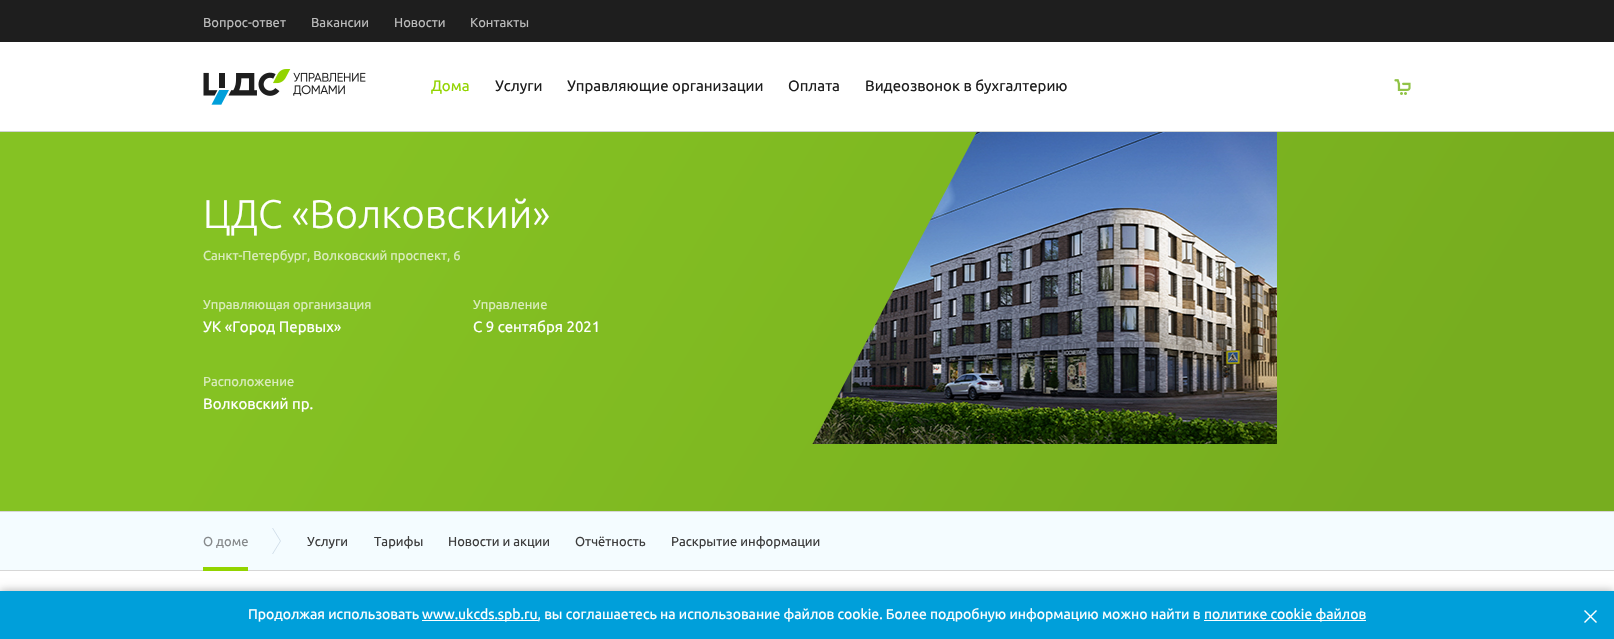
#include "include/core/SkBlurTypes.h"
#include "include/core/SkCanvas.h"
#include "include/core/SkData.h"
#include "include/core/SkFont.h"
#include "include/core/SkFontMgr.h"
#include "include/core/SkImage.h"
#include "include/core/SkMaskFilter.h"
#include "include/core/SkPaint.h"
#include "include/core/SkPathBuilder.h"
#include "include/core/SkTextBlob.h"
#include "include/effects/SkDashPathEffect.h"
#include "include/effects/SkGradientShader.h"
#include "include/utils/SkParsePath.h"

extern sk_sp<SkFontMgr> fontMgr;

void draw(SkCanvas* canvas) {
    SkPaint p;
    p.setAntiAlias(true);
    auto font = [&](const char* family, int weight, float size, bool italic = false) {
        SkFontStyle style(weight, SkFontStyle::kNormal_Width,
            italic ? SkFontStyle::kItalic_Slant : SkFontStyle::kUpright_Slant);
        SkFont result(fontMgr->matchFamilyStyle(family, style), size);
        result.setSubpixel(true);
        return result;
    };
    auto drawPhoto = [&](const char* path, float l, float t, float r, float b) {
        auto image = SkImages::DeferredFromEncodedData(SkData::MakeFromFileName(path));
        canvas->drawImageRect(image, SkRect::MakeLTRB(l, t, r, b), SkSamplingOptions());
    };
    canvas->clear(0xFFFFFFFF);
    p.setColor(0xFF1E1E1E);
    canvas->drawRect(SkRect::MakeLTRB(0, 0, 1614, 42), p);
    p.setColor(0xFFD1D4D3);
    canvas->drawRect(SkRect::MakeLTRB(0, 131, 1614, 132), p);
    auto font1 = font("Ubuntu", 400, 13);
    p.setColor(0xFFBCBCBC);
    {
        const struct { const char* s; float x, y; } items[] = {
            {"Вопрос-ответ", 203, 27},
            {"Вакансии", 311, 27},
            {"Новости", 394, 27},
            {"Контакты", 470, 27},
        };
        for (auto [s, x, y] : items) {
            canvas->drawString(s, x, y, font1, p);
        }
    }
    auto font2 = font("Ubuntu", 400, 15);
    p.setColor(0xFF92D400);
    canvas->drawString("Дома", 431, 91, font2, p);
    p.setColor(0xFF1E1E1E);
    {
        const struct { const char* s; float x, y; } items[] = {
            {"Услуги", 495, 91},
            {"Управляющие организации", 567, 91},
            {"Оплата", 788, 91},
            {"Видеозвонок в бухгалтерию", 865, 91},
        };
        for (auto [s, x, y] : items) {
            canvas->drawString(s, x, y, font2, p);
        }
    }
    drawPhoto("media/1.png", 203, 69, 366, 105);
    drawPhoto("media/2.png", 1394, 79, 1411, 95);
    {
        const SkColor colors[] = {0xFF85C223, 0xFF77AD1F};
        const float stops[] = {0.21f, 0.87f};
        const SkPoint ends[] = {{130, -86}, {1484, 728}};
        p.setShader(SkGradientShader::MakeLinear(ends, colors, stops, 2, SkTileMode::kClamp));
        p.setAlpha(255);
    }
    canvas->drawRect(SkRect::MakeLTRB(0, 132, 1614, 511), p);
    auto font3 = font("Ubuntu", 300, 40);
    p.setShader(nullptr);
    p.setColor(0xFFFFFFFF);
    canvas->drawString("ЦДС «Волковский»", 203, 228, font3, p);
    p.setColor(0xFFDAECBD);
    canvas->drawString("Санкт-Петербург, Волковский проспект, 6", 203, 260, font1, p);
    canvas->drawString("Управляющая организация", 203, 309, font1, p);
    p.setColor(0xFFFFFFFF);
    canvas->drawString("УК «Город Первых»", 203, 332, font2, p);
    p.setColor(0xFFDAECBD);
    canvas->drawString("Расположение", 203, 386, font1, p);
    p.setColor(0xFFFFFFFF);
    canvas->drawString("Волковский пр.", 203, 409, font2, p);
    p.setColor(0xFFDAECBD);
    canvas->drawString("Управление", 473, 309, font1, p);
    p.setColor(0xFFFFFFFF);
    canvas->drawString("C 9 сентября 2021", 473, 332, font2, p);
    drawPhoto("media/3.png", 812, 132, 1277, 444);
    {
        const struct { float l, t, r, b; SkColor color; } items[] = {
            {0, 512, 1614, 570, 0xFFF4FCFF},
            {0, 511, 1614, 512, 0xFFD7D7D7},
            {0, 570, 1614, 571, 0xFFD7D7D7},
        };
        for (auto [l, t, r, b, color] : items) {
            p.setColor(color);
            canvas->drawRect(SkRect::MakeLTRB(l, t, r, b), p);
        }
    }
    p.setColor(0xFF86898B);
    canvas->drawString("О доме", 203, 546, font1, p);
    p.setStyle(SkPaint::kStroke_Style);
    p.setStrokeWidth(1);
    p.setColor(0xFFD3E0EB);
    canvas->drawPath(SkPathBuilder().moveTo(272.5f, 554).lineTo(280.5f, 541).lineTo(272.5f, 528).detach(), p);
    p.setStyle(SkPaint::kFill_Style);
    p.setColor(0xFF92D400);
    canvas->drawRect(SkRect::MakeLTRB(203, 567, 248, 571), p);
    p.setColor(0xFF3D3D3D);
    {
        const struct { const char* s; float x, y; } items[] = {
            {"Услуги", 307, 546},
            {"Тарифы", 374, 546},
            {"Новости и акции", 448, 546},
            {"Отчётность", 575, 546},
            {"Раскрытие информации", 671, 546},
        };
        for (auto [s, x, y] : items) {
            canvas->drawString(s, x, y, font1, p);
        }
    }
    p.setColor(0x45000000);
    p.setMaskFilter(SkMaskFilter::MakeBlur(kNormal_SkBlurStyle, 4));
    canvas->drawRect(SkRect::MakeLTRB(0, 590, 1614, 638), p);
    p.setMaskFilter(nullptr);
    p.setColor(0xFF009FDA);
    canvas->drawRect(SkRect::MakeLTRB(0, 591, 1614, 639), p);
    auto font4 = font("Ubuntu", 400, 14);
    p.setColor(0xFFFFFFFF);
    canvas->drawString("Продолжая использовать", 248, 619, font4, p);
    canvas->drawRect(SkRect::MakeLTRB(422, 620, 538, 621), p);
    canvas->drawString("www.ukcds.spb.ru, вы соглашаетесь на использование файлов cookie. Более подробную информацию можно найти в", 422, 619, font4, p);
    canvas->drawRect(SkRect::MakeLTRB(1204, 620, 1366, 621), p);
    canvas->drawString("политике cookie файлов", 1204, 619, font4, p);
    canvas->drawPath(SkPathBuilder().moveTo(1585, 610).lineTo(1597, 622).lineTo(1596, 623).lineTo(1584, 611).close().detach(), p);
    canvas->drawPath(SkPathBuilder().moveTo(1596, 610).lineTo(1597, 611).lineTo(1585, 623).lineTo(1584, 622).close().detach(), p);
}
